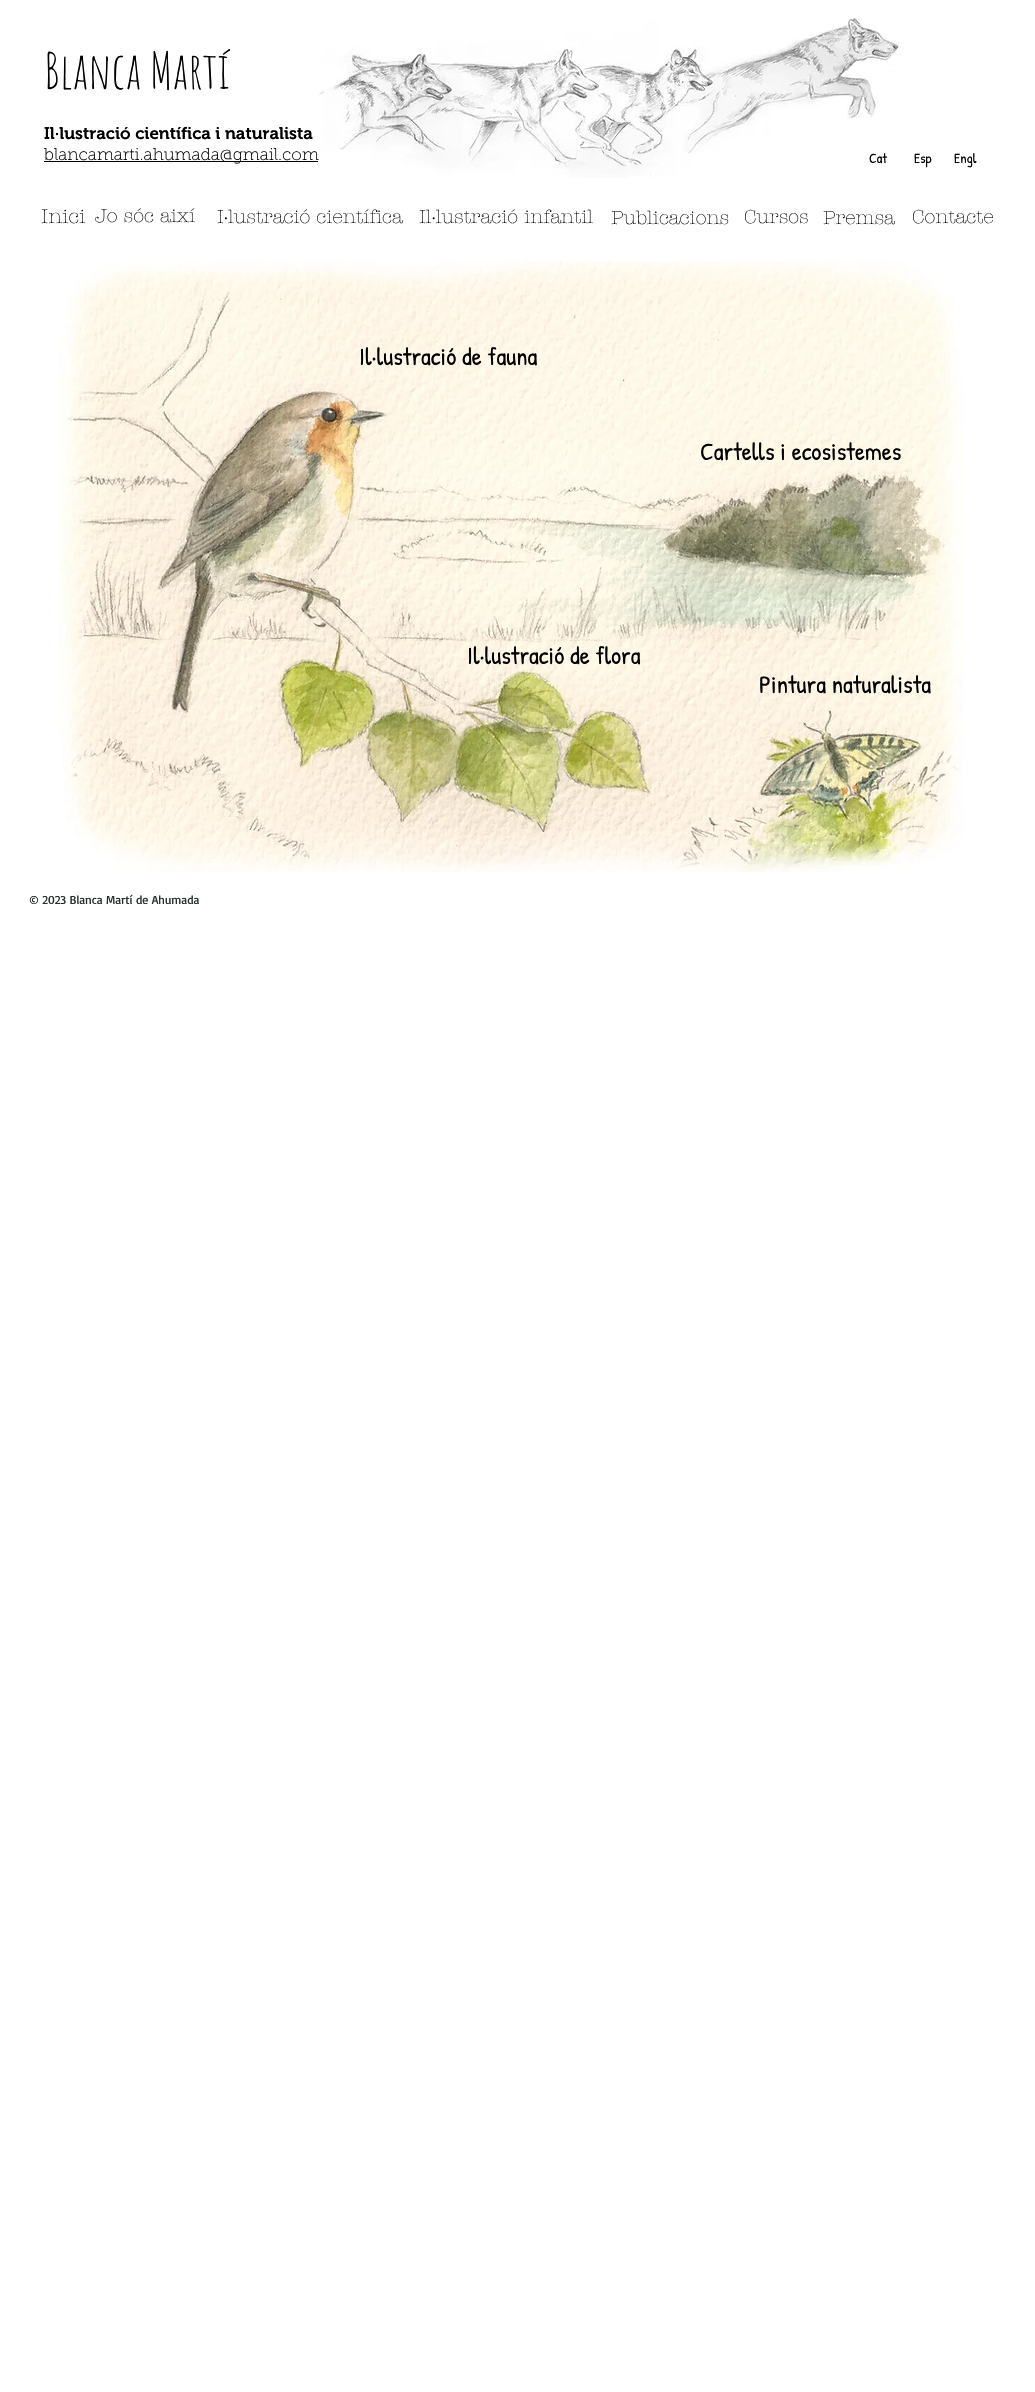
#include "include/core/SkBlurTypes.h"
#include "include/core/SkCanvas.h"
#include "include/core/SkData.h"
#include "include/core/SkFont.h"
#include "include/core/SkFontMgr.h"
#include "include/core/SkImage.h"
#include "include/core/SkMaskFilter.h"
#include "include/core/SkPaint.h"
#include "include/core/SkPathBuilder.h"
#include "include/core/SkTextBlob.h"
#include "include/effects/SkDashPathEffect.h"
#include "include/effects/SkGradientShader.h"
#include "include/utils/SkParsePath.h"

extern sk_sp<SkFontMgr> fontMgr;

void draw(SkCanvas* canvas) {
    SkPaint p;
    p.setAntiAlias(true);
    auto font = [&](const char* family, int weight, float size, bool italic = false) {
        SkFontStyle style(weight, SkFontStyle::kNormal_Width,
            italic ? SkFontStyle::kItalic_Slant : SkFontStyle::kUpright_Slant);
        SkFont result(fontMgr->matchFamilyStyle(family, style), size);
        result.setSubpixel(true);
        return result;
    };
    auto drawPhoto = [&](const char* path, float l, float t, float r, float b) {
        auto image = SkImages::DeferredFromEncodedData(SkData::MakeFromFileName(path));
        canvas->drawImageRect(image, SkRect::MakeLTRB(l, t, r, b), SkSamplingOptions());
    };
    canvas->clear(0xFFFFFFFF);
    auto font1 = font("Amatic SC", 400, 50);
    p.setColor(0xFF000000);
    canvas->drawString("Blanca Martí", 44, 89, font1, p);
    auto font2 = font("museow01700", 600, 17);
    canvas->drawString("Il·lustració científica i naturalista", 44, 139, font2, p);
    canvas->drawRect(SkRect::MakeLTRB(44, 161, 318, 162), p);
    auto font3 = font("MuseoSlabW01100", 100, 17);
    canvas->drawString("blancamarti.ahumada@gmail.com", 44, 160, font3, p);
    auto font4 = font("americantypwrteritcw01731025", 300, 20);
    canvas->drawString("Inici", 41, 223, font4, p);
    auto font5 = font("americantypwrteritcw01731025", 300, 19);
    {
        const struct { const char* s; float x, y; } items[] = {
            {"Jo sóc així", 95, 222},
            {"I·lustració científica", 217, 223},
            {"Il·lustració infantil", 419, 223},
            {"Publicacions", 611, 224},
            {"Cursos", 744, 223},
            {"Premsa", 823, 224},
            {"Contacte", 912, 223},
        };
        for (auto [s, x, y] : items) {
            canvas->drawString(s, x, y, font5, p);
        }
    }
    drawPhoto("media/1.png", 59, 261, 963, 872);
    auto font6 = font("Patrick Hand", 400, 25);
    {
        const struct { const char* s; float x, y; } items[] = {
            {"Il·lustració de fauna", 359, 365},
            {"Cartells i ecosistemes", 700, 460},
            {"Il·lustració de flora", 467, 664},
            {"Pintura naturalista", 759, 693},
        };
        for (auto [s, x, y] : items) {
            canvas->drawString(s, x, y, font6, p);
        }
    }
    auto font7 = font("Basic", 400, 12);
    p.setColor(0xFF292C2D);
    canvas->drawString("© 2023 Blanca Martí de Ahumada", 29, 904, font7, p);
    drawPhoto("media/2.png", 319, 18, 899, 178);
    auto font8 = font("Patrick Hand", 400, 14);
    p.setColor(0xFF000000);
    {
        const struct { const char* s; float x, y; } items[] = {
            {"Cat", 869, 163},
            {"Esp", 914, 163},
            {"Engl", 954, 163},
        };
        for (auto [s, x, y] : items) {
            canvas->drawString(s, x, y, font8, p);
        }
    }
}
